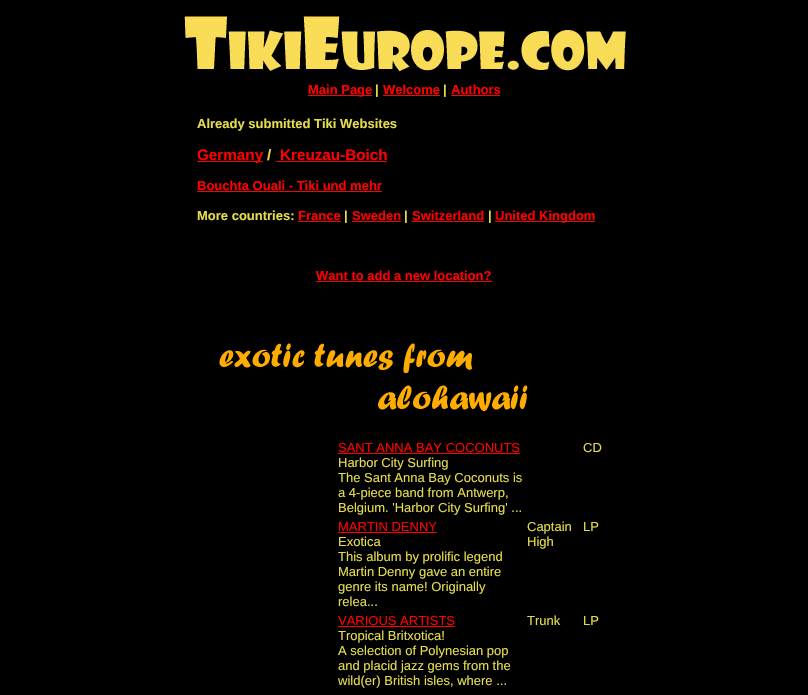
#include "include/core/SkBlurTypes.h"
#include "include/core/SkCanvas.h"
#include "include/core/SkData.h"
#include "include/core/SkFont.h"
#include "include/core/SkFontMgr.h"
#include "include/core/SkImage.h"
#include "include/core/SkMaskFilter.h"
#include "include/core/SkPaint.h"
#include "include/core/SkPathBuilder.h"
#include "include/core/SkTextBlob.h"
#include "include/effects/SkDashPathEffect.h"
#include "include/effects/SkGradientShader.h"
#include "include/utils/SkParsePath.h"

extern sk_sp<SkFontMgr> fontMgr;

void draw(SkCanvas* canvas) {
    SkPaint p;
    p.setAntiAlias(true);
    auto font = [&](const char* family, int weight, float size, bool italic = false) {
        SkFontStyle style(weight, SkFontStyle::kNormal_Width,
            italic ? SkFontStyle::kItalic_Slant : SkFontStyle::kUpright_Slant);
        SkFont result(fontMgr->matchFamilyStyle(family, style), size);
        result.setSubpixel(true);
        return result;
    };
    auto drawPhoto = [&](const char* path, float l, float t, float r, float b) {
        auto image = SkImages::DeferredFromEncodedData(SkData::MakeFromFileName(path));
        canvas->drawImageRect(image, SkRect::MakeLTRB(l, t, r, b), SkSamplingOptions());
    };
    canvas->clear(0xFF000000);
    drawPhoto("media/1.png", 184, 16, 632, 72);
    p.setColor(0xFFFF0000);
    canvas->drawRect(SkRect::MakeLTRB(308, 95, 372, 96), p);
    auto font1 = font("Liberation Sans", 700, 13);
    canvas->drawString("Main Page", 308, 94, font1, p);
    p.setColor(0xFFE4DC4D);
    canvas->drawString("|", 375, 94, font1, p);
    p.setColor(0xFFFF0000);
    canvas->drawString("Welcome", 383, 94, font1, p);
    canvas->drawRect(SkRect::MakeLTRB(383, 95, 440, 96), p);
    p.setColor(0xFFE4DC4D);
    canvas->drawString("|", 443, 94, font1, p);
    p.setColor(0xFFFF0000);
    canvas->drawString("Authors", 451, 94, font1, p);
    canvas->drawRect(SkRect::MakeLTRB(451, 95, 500, 96), p);
    p.setColor(0xFFE4DC4D);
    canvas->drawString("Already submitted Tiki Websites", 197, 128, font1, p);
    p.setColor(0xFFFF0000);
    canvas->drawRect(SkRect::MakeLTRB(197, 161, 263, 162), p);
    auto font2 = font("Liberation Sans", 700, 15.25f);
    canvas->drawString("Germany", 197, 160, font2, p);
    p.setColor(0xFFE4DC4D);
    canvas->drawString("/", 267, 160, font2, p);
    p.setColor(0xFFFF0000);
    canvas->drawString("Kreuzau-Boich", 280, 160, font2, p);
    canvas->drawRect(SkRect::MakeLTRB(276, 161, 387, 162), p);
    canvas->drawString("Bouchta Ouali - Tiki und mehr", 197, 190, font1, p);
    canvas->drawRect(SkRect::MakeLTRB(197, 191, 382, 192), p);
    p.setColor(0xFFE4DC4D);
    canvas->drawString("More countries:", 197, 220, font1, p);
    p.setColor(0xFFFF0000);
    canvas->drawString("France", 298, 220, font1, p);
    canvas->drawRect(SkRect::MakeLTRB(298, 221, 341, 222), p);
    p.setColor(0xFFE4DC4D);
    canvas->drawString("|", 344, 220, font1, p);
    p.setColor(0xFFFF0000);
    canvas->drawString("Sweden", 352, 220, font1, p);
    canvas->drawRect(SkRect::MakeLTRB(352, 221, 401, 222), p);
    p.setColor(0xFFE4DC4D);
    canvas->drawString("|", 404, 220, font1, p);
    p.setColor(0xFFFF0000);
    canvas->drawString("Switzerland", 412, 220, font1, p);
    canvas->drawRect(SkRect::MakeLTRB(412, 221, 484, 222), p);
    p.setColor(0xFFE4DC4D);
    canvas->drawString("|", 488, 220, font1, p);
    p.setColor(0xFFFF0000);
    canvas->drawRect(SkRect::MakeLTRB(495, 221, 595, 222), p);
    canvas->drawString("United Kingdom", 495, 220, font1, p);
    canvas->drawString("Want to add a new location?", 316, 280, font1, p);
    canvas->drawRect(SkRect::MakeLTRB(316, 281, 492, 282), p);
    drawPhoto("media/2.png", 219, 343, 528, 411);
    auto font3 = font("Liberation Sans", 400, 13);
    canvas->drawString("SANT ANNA BAY COCONUTS", 338, 452, font3, p);
    canvas->drawRect(SkRect::MakeLTRB(338, 453, 520, 454), p);
    p.setColor(0xFFE4DC4D);
    {
        const struct { const char* s; float x, y; } items[] = {
            {"Harbor City Surfing", 338, 467},
            {"The Sant Anna Bay Coconuts is", 338, 482},
            {"a 4-piece band from Antwerp,", 338, 497},
            {"Belgium. 'Harbor City Surfing' ...", 338, 512},
            {"CD", 583, 452},
        };
        for (auto [s, x, y] : items) {
            canvas->drawString(s, x, y, font3, p);
        }
    }
    p.setColor(0xFFFF0000);
    canvas->drawString("MARTIN DENNY", 338, 531, font3, p);
    canvas->drawRect(SkRect::MakeLTRB(338, 532, 437, 533), p);
    p.setColor(0xFFE4DC4D);
    {
        const struct { const char* s; float x, y; } items[] = {
            {"Exotica", 338, 546},
            {"This album by prolific legend", 338, 561},
            {"Martin Denny gave an entire", 338, 576},
            {"genre its name! Originally", 338, 591},
            {"relea...", 338, 606},
            {"Captain", 527, 531},
            {"High", 527, 546},
            {"LP", 583, 531},
        };
        for (auto [s, x, y] : items) {
            canvas->drawString(s, x, y, font3, p);
        }
    }
    p.setColor(0xFFFF0000);
    canvas->drawString("VARIOUS ARTISTS", 338, 625, font3, p);
    canvas->drawRect(SkRect::MakeLTRB(338, 626, 455, 627), p);
    p.setColor(0xFFE4DC4D);
    {
        const struct { const char* s; float x, y; } items[] = {
            {"Tropical Britxotica!", 338, 640},
            {"A selection of Polynesian pop", 338, 655},
            {"and placid jazz gems from the", 338, 670},
            {"wild(er) British isles, where ...", 338, 685},
            {"Trunk", 527, 625},
            {"LP", 583, 625},
        };
        for (auto [s, x, y] : items) {
            canvas->drawString(s, x, y, font3, p);
        }
    }
}
